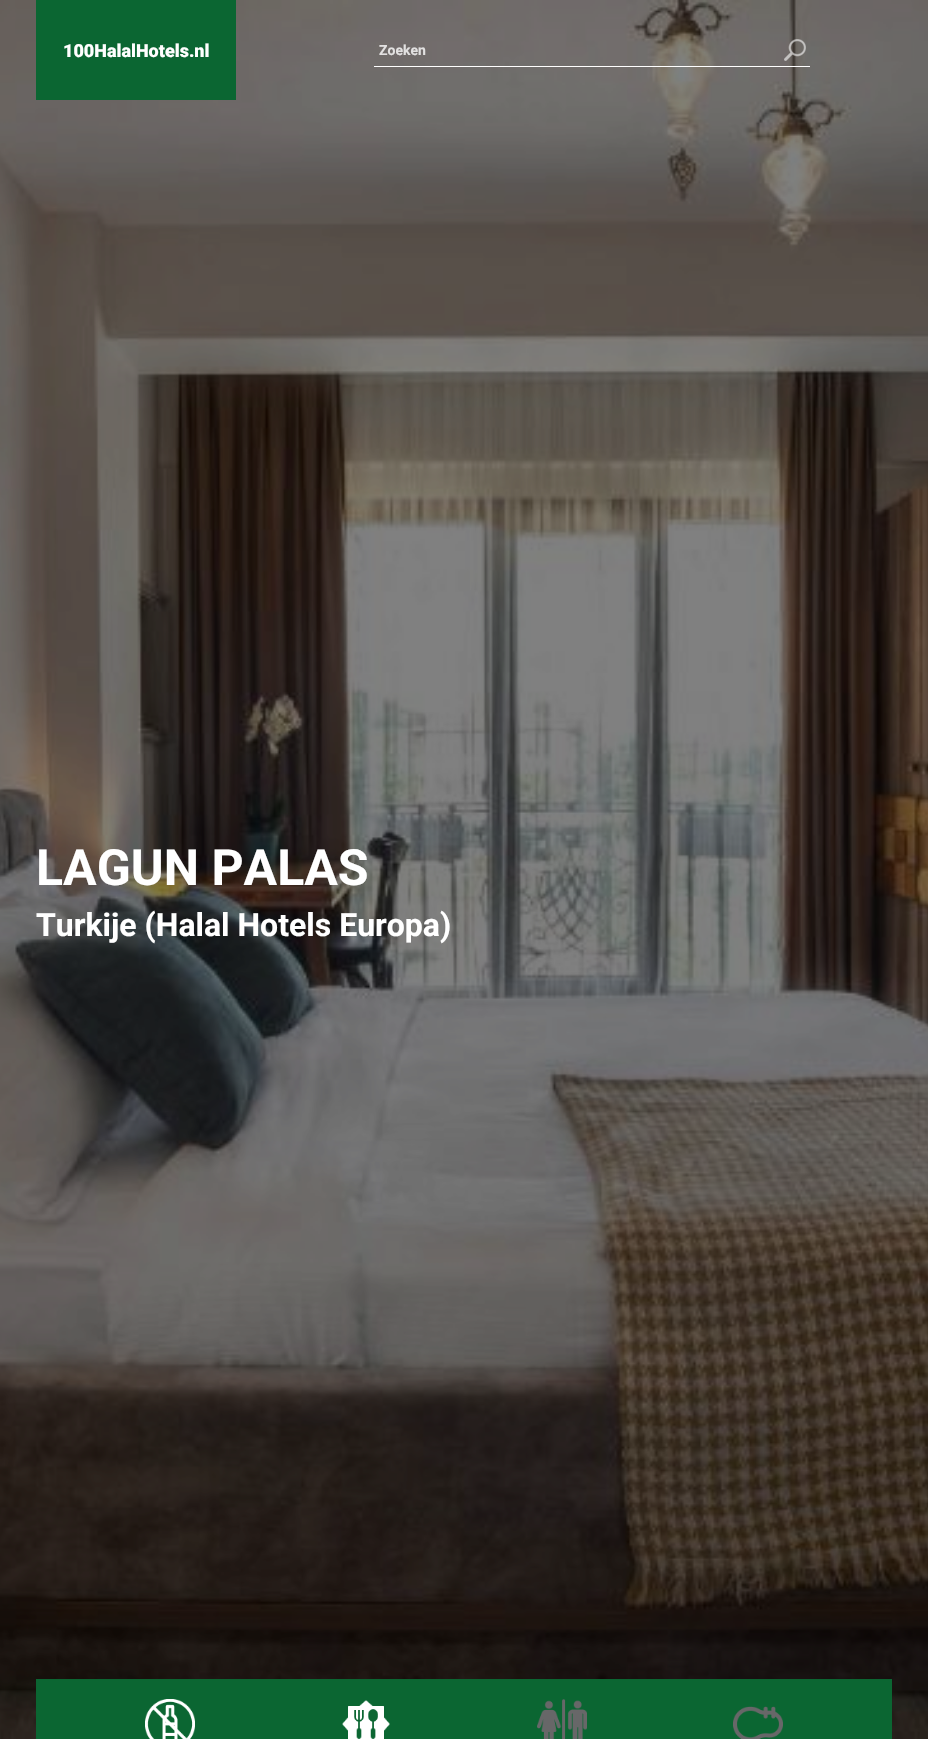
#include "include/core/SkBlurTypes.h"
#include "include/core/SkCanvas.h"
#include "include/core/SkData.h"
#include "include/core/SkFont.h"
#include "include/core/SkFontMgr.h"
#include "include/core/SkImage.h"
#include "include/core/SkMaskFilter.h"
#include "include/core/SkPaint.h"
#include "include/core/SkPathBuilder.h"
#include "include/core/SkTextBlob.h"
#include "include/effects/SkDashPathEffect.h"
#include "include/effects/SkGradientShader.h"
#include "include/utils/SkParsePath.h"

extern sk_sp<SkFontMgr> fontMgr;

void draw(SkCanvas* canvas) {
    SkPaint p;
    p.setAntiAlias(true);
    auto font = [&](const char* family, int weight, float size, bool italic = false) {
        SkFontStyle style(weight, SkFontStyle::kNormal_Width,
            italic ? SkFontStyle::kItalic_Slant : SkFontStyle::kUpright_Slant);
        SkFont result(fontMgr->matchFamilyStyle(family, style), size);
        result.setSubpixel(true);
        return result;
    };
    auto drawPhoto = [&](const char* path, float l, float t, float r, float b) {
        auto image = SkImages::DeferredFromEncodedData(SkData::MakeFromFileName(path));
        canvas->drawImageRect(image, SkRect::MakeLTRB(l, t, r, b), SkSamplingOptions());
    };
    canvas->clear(0xFFFFFFFF);
    drawPhoto("media/2.png", 0, 0, 928, 1739);
    p.setColor(0xFF0B6632);
    canvas->drawRect(SkRect::MakeLTRB(36, 0, 236, 100), p);
    auto font1 = font("Roboto", 900, 18);
    p.setColor(0xFFFFFFFF);
    canvas->drawString("100HalalHotels.nl", 63, 57, font1, p);
    canvas->drawRect(SkRect::MakeLTRB(374, 66, 810, 67), p);
    auto font2 = font("Roboto", 700, 14);
    p.setColor(0xFFE2E1E1);
    canvas->drawString("Zoeken", 379, 55, font2, p);
    drawPhoto("media/1.png", 784, 39, 806, 61);
    auto font3 = font("Roboto", 700, 50);
    p.setColor(0xFFFFFFFF);
    canvas->drawString("LAGUN PALAS", 36, 885, font3, p);
    auto font4 = font("Roboto", 700, 32);
    canvas->drawString("Turkije (Halal Hotels Europa)", 36, 936, font4, p);
    p.setColor(0xFF0B6632);
    canvas->drawRect(SkRect::MakeLTRB(36, 1679, 892, 1739), p);
    drawPhoto("media/3.png", 145, 1699, 195, 1739);
    drawPhoto("media/4.png", 342, 1700, 390, 1739);
    drawPhoto("media/5.png", 537, 1699, 587, 1739);
    drawPhoto("media/6.png", 733, 1706, 783, 1739);
}
